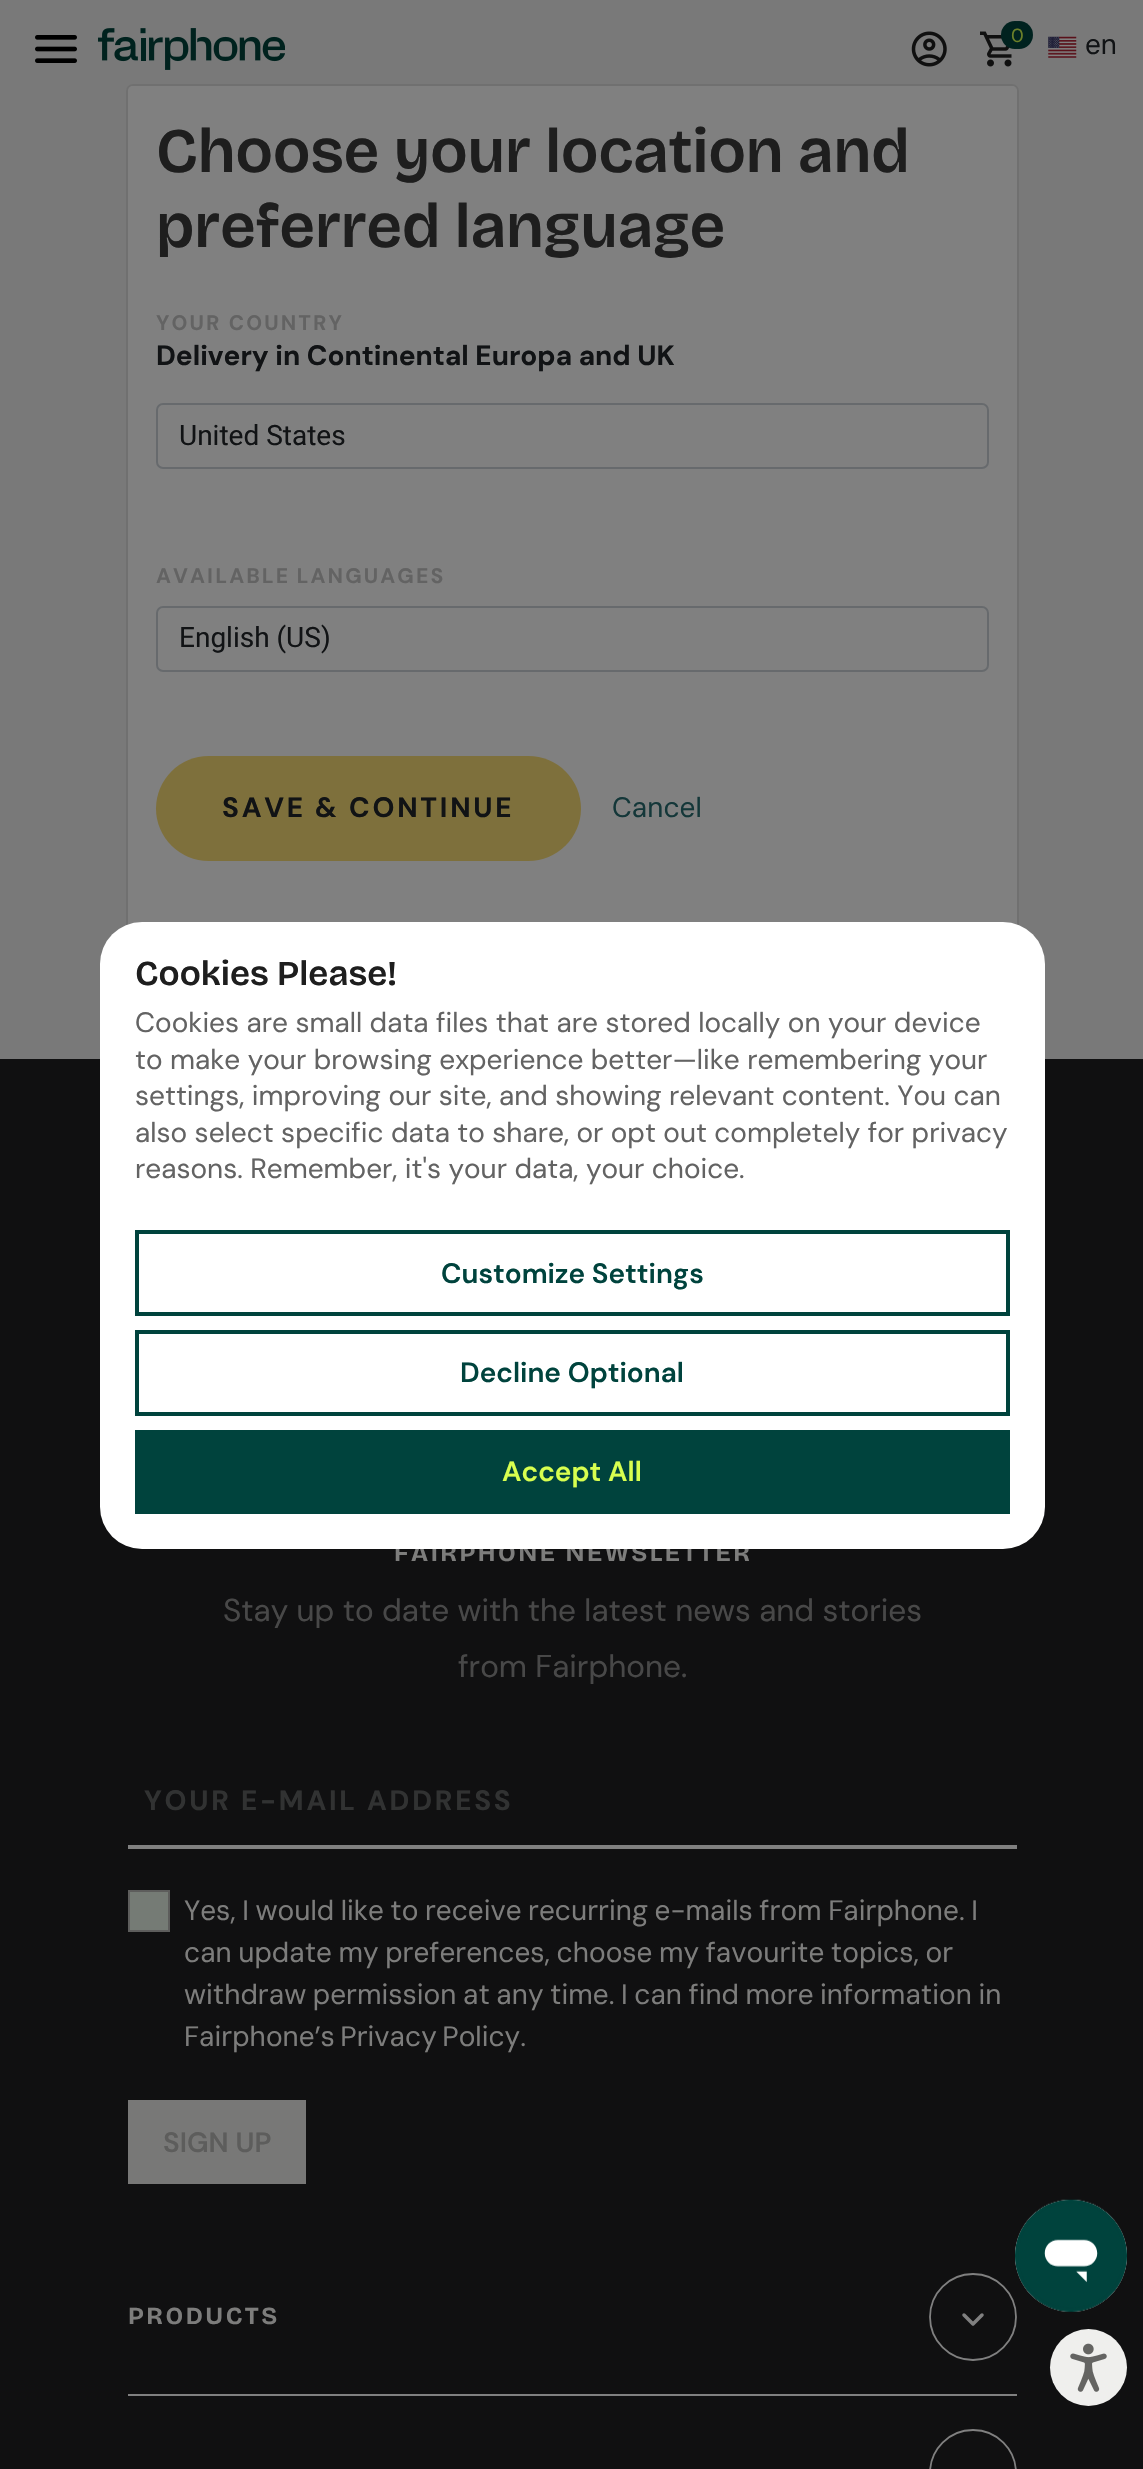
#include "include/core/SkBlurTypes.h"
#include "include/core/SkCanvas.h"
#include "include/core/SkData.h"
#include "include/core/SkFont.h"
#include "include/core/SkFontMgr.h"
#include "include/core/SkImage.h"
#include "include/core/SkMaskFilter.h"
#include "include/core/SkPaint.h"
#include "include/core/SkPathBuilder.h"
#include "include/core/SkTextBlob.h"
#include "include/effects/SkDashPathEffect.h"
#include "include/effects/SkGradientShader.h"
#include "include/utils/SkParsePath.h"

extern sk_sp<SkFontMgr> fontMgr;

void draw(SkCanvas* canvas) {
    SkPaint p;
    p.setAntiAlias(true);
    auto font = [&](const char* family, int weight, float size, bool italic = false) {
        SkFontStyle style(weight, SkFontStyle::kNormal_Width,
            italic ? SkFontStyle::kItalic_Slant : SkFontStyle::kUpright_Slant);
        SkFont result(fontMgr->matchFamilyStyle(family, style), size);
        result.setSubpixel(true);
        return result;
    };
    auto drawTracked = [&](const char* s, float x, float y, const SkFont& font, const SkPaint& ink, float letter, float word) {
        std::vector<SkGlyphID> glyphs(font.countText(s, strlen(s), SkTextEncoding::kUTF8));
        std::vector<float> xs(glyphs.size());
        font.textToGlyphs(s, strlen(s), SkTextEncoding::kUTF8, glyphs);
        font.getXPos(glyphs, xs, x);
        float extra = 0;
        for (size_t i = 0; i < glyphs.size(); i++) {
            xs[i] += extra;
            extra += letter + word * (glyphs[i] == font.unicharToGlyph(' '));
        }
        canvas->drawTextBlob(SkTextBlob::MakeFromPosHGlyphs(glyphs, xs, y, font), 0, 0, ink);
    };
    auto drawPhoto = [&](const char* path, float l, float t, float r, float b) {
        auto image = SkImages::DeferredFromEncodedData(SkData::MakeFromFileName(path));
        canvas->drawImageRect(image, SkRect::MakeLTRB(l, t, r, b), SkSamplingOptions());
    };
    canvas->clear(0xFF797979);
    drawPhoto("media/1.png", 35, 35, 77, 63);
    drawPhoto("media/2.png", 98, 28, 285, 70);
    drawPhoto("media/3.png", 911, 31, 947, 67);
    drawPhoto("media/4.png", 980, 31, 1012, 67);
    p.setColor(0xFF00221F);
    canvas->drawCircle(1015, 35, 14, p);
    canvas->drawCircle(1019, 35, 14, p);
    auto font1 = font("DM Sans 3", 400, 19);
    p.setColor(0xFF6C8028);
    canvas->drawString("0", 1011, 42, font1, p);
    drawPhoto("media/5.png", 1048, 36, 1077, 58);
    auto font2 = font("DM Sans", 400, 28);
    p.setColor(0xFF111315);
    canvas->drawString("en", 1085, 54, font2, p);
    p.setColor(0xFF808080);
    canvas->drawRoundRect(SkRect::MakeLTRB(126, 84, 1019, 975), 7, 7, p);
    p.setStyle(SkPaint::kStroke_Style);
    p.setStrokeWidth(2);
    p.setColor(0x1F000000);
    canvas->drawRoundRect(SkRect::MakeLTRB(127, 85, 1018, 974), 6, 6, p);
    p.setStyle(SkPaint::kFill_Style);
    p.setColor(0xE6808080);
    canvas->drawRoundRect(SkRect::MakeLTRB(128, 86, 1017, 973), 5, 5, p);
    auto font3 = font("Bricolage Grotesque", 600, 63);
    p.setColor(0xFF1E1E1E);
    canvas->drawString("Choose your location and", 156, 172, font3, p);
    canvas->drawString("preferred language", 156, 247, font3, p);
    auto font4 = font("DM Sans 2", 700, 21);
    p.setColor(0xFF636363);
    drawTracked("YOUR COUNTRY", 156, 330, font4, p, 2.1f, 0);
    auto font5 = font("DM Sans", 700, 28);
    p.setColor(0xFF111315);
    canvas->drawString("Delivery in Continental Europa and UK", 156, 365, font5, p);
    p.setStyle(SkPaint::kStroke_Style);
    p.setColor(0xFF676A6D);
    canvas->drawRoundRect(SkRect::MakeLTRB(157, 404, 988, 468), 6, 6, p);
    auto font6 = font("Roboto", 400, 28);
    p.setStyle(SkPaint::kFill_Style);
    p.setColor(0xFF111315);
    canvas->drawString("United States", 179, 445, font6, p);
    p.setColor(0xFF636363);
    drawTracked("AVAILABLE LANGUAGES", 156, 583, font4, p, 2.1f, -1);
    p.setStyle(SkPaint::kStroke_Style);
    p.setColor(0xFF676A6D);
    canvas->drawRoundRect(SkRect::MakeLTRB(157, 607, 988, 671), 6, 6, p);
    p.setStyle(SkPaint::kFill_Style);
    p.setColor(0xFF111315);
    canvas->drawString("English (US)", 179, 647, font6, p);
    p.setColor(0xFF7E703C);
    canvas->drawRoundRect(SkRect::MakeLTRB(156, 756, 581, 861), 52.5f, 52.5f, p);
    p.setColor(0xFF111315);
    drawTracked("SAVE & CONTINUE", 222, 817, font5, p, 2.75f, 0);
    p.setColor(0xFF143739);
    canvas->drawString("Cancel", 612, 817, font2, p);
    p.setColor(0xFF101011);
    canvas->drawRect(SkRect::MakeLTRB(0, 1059, 1143, 2469), p);
    auto font7 = font("Bricolage Grotesque", 700, 24.5f);
    p.setColor(0xFF7D7D7C);
    drawTracked("FAIRPHONE NEWSLETTER", 394, 1561, font7, p, 2.5f, 0);
    auto font8 = font("DM Sans 2", 400, 31.5f);
    p.setColor(0xFF484848);
    canvas->drawString("Stay up to date with the latest news and stories", 223, 1621, font8, p);
    canvas->drawString("from Fairphone.", 458, 1677, font8, p);
    p.setColor(0xFF313232);
    drawTracked("YOUR E-MAIL ADDRESS", 144, 1810, font5, p, 2.75f, 0);
    p.setColor(0xFF808080);
    canvas->drawRect(SkRect::MakeLTRB(128, 1845, 1017, 1849), p);
    p.setColor(0xFF757B75);
    canvas->drawRect(SkRect::MakeLTRB(129, 1891, 169, 1931), p);
    p.setStyle(SkPaint::kStroke_Style);
    p.setColor(0xFF5D5D5C);
    canvas->drawRect(SkRect::MakeLTRB(129, 1891, 169, 1931), p);
    p.setStyle(SkPaint::kFill_Style);
    p.setColor(0xFF7D7D7C);
    {
        const struct { const char* s; float x, y; } items[] = {
            {"Yes, I would like to receive recurring e-mails from Fairphone. I", 184, 1920},
            {"can update my preferences, choose my favourite topics, or", 184, 1962},
            {"withdraw permission at any time. I can find more information in", 184, 2004},
        };
        for (auto [s, x, y] : items) {
            drawTracked(s, x, y, font2, p, 0, -1);
        }
    }
    drawTracked("Fairphone’s Privacy Policy.", 184, 2046, font2, p, 0, -2);
    p.setColor(0xFF787877);
    canvas->drawRect(SkRect::MakeLTRB(128, 2100, 306, 2184), p);
    auto font9 = font("DM Sans", 600, 28);
    p.setColor(0xFF5D5D5C);
    canvas->drawString("SIGN UP", 163, 2152, font9, p);
    p.setColor(0xFF808080);
    canvas->drawRect(SkRect::MakeLTRB(128, 2394, 1017, 2396), p);
    p.setColor(0xFF7D7D7C);
    drawTracked("PRODUCTS", 128, 2324, font7, p, 2.5f, 0);
    p.setStyle(SkPaint::kStroke_Style);
    p.setStrokeWidth(1.8f);
    p.setColor(0xFF808080);
    canvas->drawCircle(973, 2317, 43, p);
    p.setStrokeWidth(3.5f);
    p.setStrokeCap(SkPaint::kRound_Cap);
    p.setStrokeJoin(SkPaint::kRound_Join);
    canvas->drawPath(SkPathBuilder().moveTo(964, 2315).lineTo(973, 2324).lineTo(982, 2315).detach(), p);
    p.setStrokeWidth(1.8f);
    p.setStrokeCap(SkPaint::kButt_Cap);
    p.setStrokeJoin(SkPaint::kMiter_Join);
    canvas->drawCircle(973, 2473, 43, p);
    p.setStyle(SkPaint::kFill_Style);
    p.setColor(0xFFFFFFFF);
    canvas->drawRoundRect(SkRect::MakeLTRB(100, 922, 1045, 1549), 42, 42, p);
    auto font10 = font("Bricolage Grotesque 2", 600, 35);
    p.setColor(0xFF1E1E1E);
    canvas->drawString("Cookies Please!", 135, 985, font10, p);
    auto font11 = font("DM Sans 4", 400, 28);
    p.setColor(0xFF636363);
    {
        const struct { const char* s; float x, y; } items[] = {
            {"Cookies are small data files that are stored locally on your device", 135, 1032},
            {"to make your browsing experience better—like remembering your", 135, 1069},
            {"settings, improving our site, and showing relevant content. You can", 135, 1105},
            {"also select specific data to share, or opt out completely for privacy", 135, 1142},
            {"reasons. Remember, it's your data, your choice.", 135, 1178},
        };
        for (auto [s, x, y] : items) {
            canvas->drawString(s, x, y, font11, p);
        }
    }
    p.setStyle(SkPaint::kStroke_Style);
    p.setStrokeWidth(4);
    p.setColor(0xFF00433D);
    canvas->drawRect(SkRect::MakeLTRB(137, 1232, 1008, 1314), p);
    p.setStyle(SkPaint::kFill_Style);
    canvas->drawString("Customize Settings", 441, 1283, font9, p);
    p.setStyle(SkPaint::kStroke_Style);
    canvas->drawRect(SkRect::MakeLTRB(137, 1332, 1008, 1414), p);
    p.setStyle(SkPaint::kFill_Style);
    canvas->drawString("Decline Optional", 460, 1382, font9, p);
    canvas->drawRect(SkRect::MakeLTRB(135, 1430, 1010, 1514), p);
    p.setColor(0xFFD8FF4F);
    canvas->drawString("Accept All", 502, 1481, font9, p);
    drawPhoto("media/6.png", 1015, 2199, 1127, 2312);
    p.setColor(0xFFEFEFED);
    canvas->drawCircle(1088.5f, 2367.5f, 38.5f, p);
    drawPhoto("media/7.png", 1070, 2343, 1107, 2392);
}
